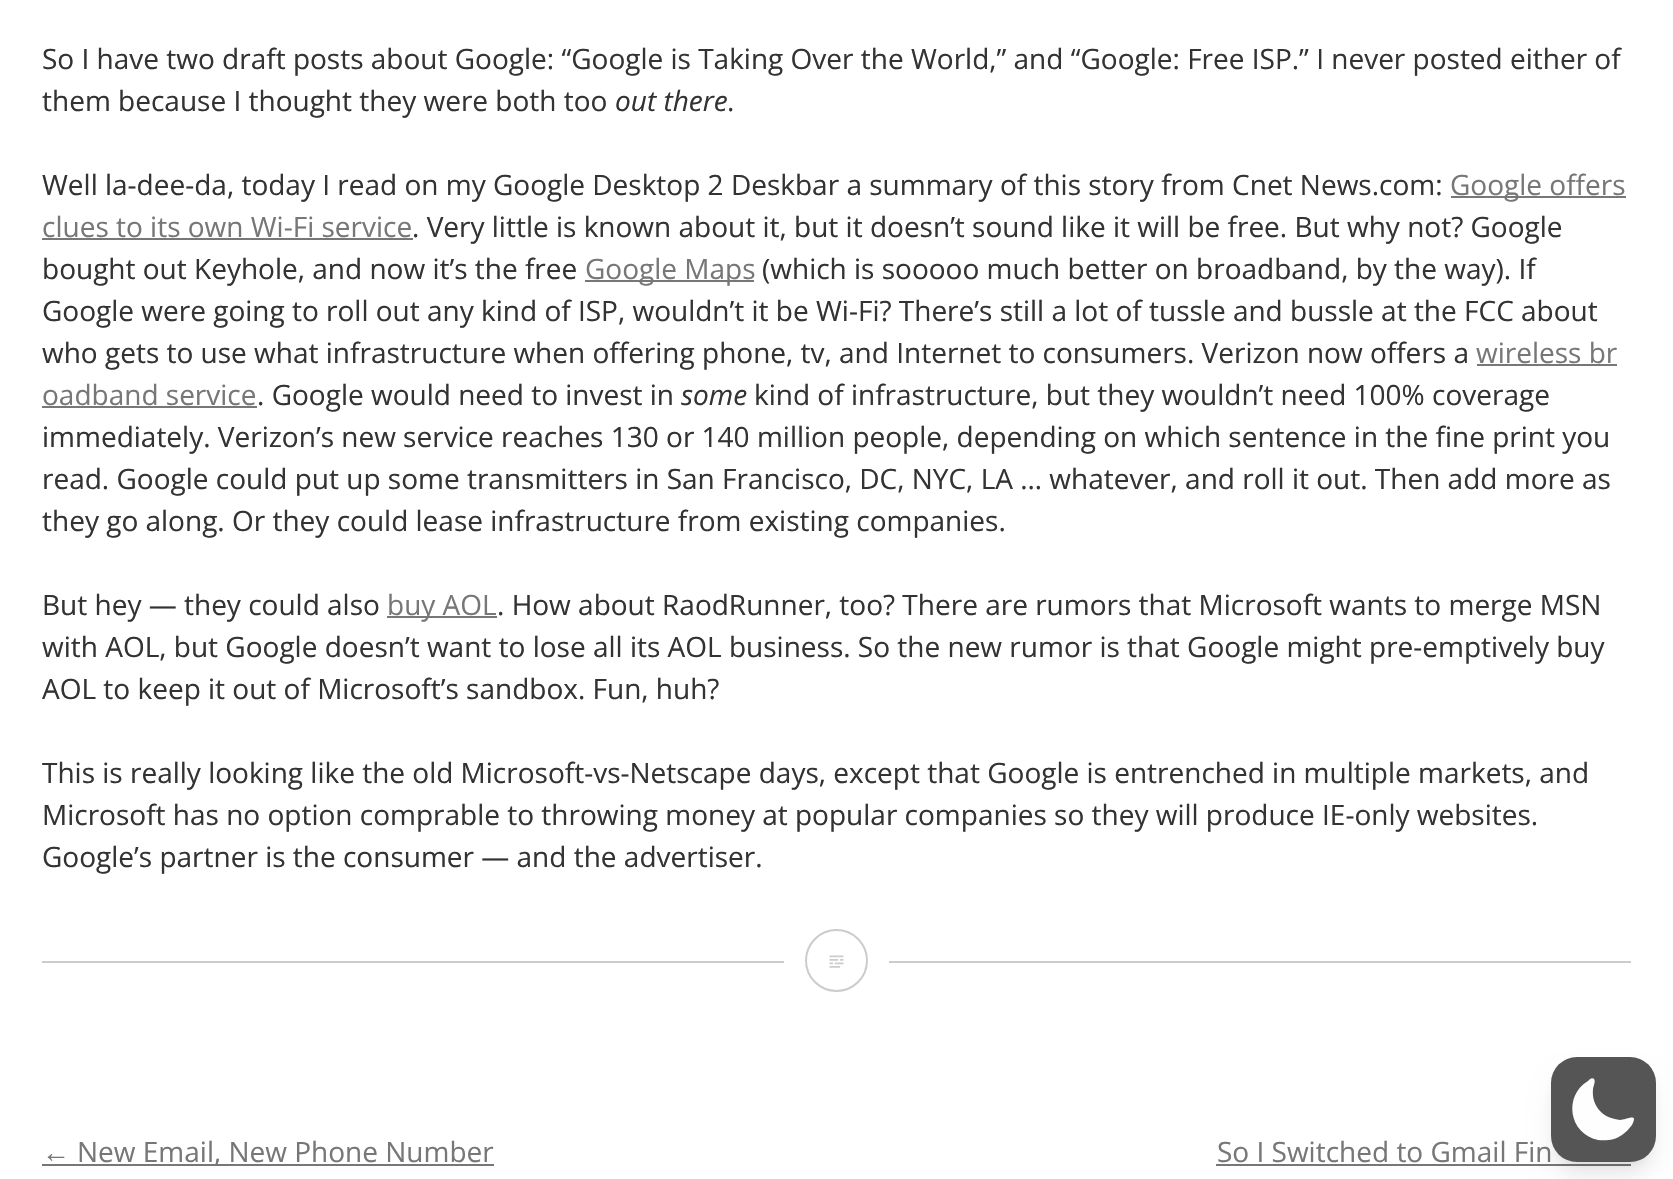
#include "include/core/SkBlurTypes.h"
#include "include/core/SkCanvas.h"
#include "include/core/SkData.h"
#include "include/core/SkFont.h"
#include "include/core/SkFontMgr.h"
#include "include/core/SkImage.h"
#include "include/core/SkMaskFilter.h"
#include "include/core/SkPaint.h"
#include "include/core/SkPathBuilder.h"
#include "include/core/SkTextBlob.h"
#include "include/effects/SkDashPathEffect.h"
#include "include/effects/SkGradientShader.h"
#include "include/utils/SkParsePath.h"

extern sk_sp<SkFontMgr> fontMgr;

void draw(SkCanvas* canvas) {
    SkPaint p;
    p.setAntiAlias(true);
    auto font = [&](const char* family, int weight, float size, bool italic = false) {
        SkFontStyle style(weight, SkFontStyle::kNormal_Width,
            italic ? SkFontStyle::kItalic_Slant : SkFontStyle::kUpright_Slant);
        SkFont result(fontMgr->matchFamilyStyle(family, style), size);
        result.setSubpixel(true);
        return result;
    };
    auto drawPhoto = [&](const char* path, float l, float t, float r, float b) {
        auto image = SkImages::DeferredFromEncodedData(SkData::MakeFromFileName(path));
        canvas->drawImageRect(image, SkRect::MakeLTRB(l, t, r, b), SkSamplingOptions());
    };
    canvas->clear(0xFFFFFFFF);
    p.setColor(0xFFCCCCCC);
    canvas->drawRect(SkRect::MakeLTRB(42, 961, 1631, 963), p);
    auto font1 = font("Open Sans", 400, 28);
    p.setColor(0xFF333333);
    canvas->drawString("So I have two draft posts about Google: “Google is Taking Over the World,” and “Google: Free ISP.” I never posted either of", 42, 69, font1, p);
    canvas->drawString("them because I thought they were both too", 42, 111, font1, p);
    auto font2 = font("Open Sans", 400, 28, true);
    canvas->drawString("out there", 615, 111, font2, p);
    canvas->drawString(".", 727, 111, font1, p);
    canvas->drawString("Well la-dee-da, today I read on my Google Desktop 2 Deskbar a summary of this story from Cnet News.com:", 42, 195, font1, p);
    p.setColor(0xFF777777);
    canvas->drawRect(SkRect::MakeLTRB(1451, 196, 1626, 198), p);
    canvas->drawString("Google offers", 1450, 195, font1, p);
    canvas->drawString("clues to its own Wi-Fi service", 42, 237, font1, p);
    canvas->drawRect(SkRect::MakeLTRB(42, 238, 413, 240), p);
    p.setColor(0xFF333333);
    canvas->drawString(". Very little is known about it, but it doesn’t sound like it will be free. But why not? Google", 412, 237, font1, p);
    canvas->drawString("bought out Keyhole, and now it’s the free", 42, 279, font1, p);
    p.setColor(0xFF777777);
    canvas->drawRect(SkRect::MakeLTRB(585, 280, 754, 282), p);
    canvas->drawString("Google Maps", 585, 279, font1, p);
    p.setColor(0xFF333333);
    {
        const struct { const char* s; float x, y; } items[] = {
            {"(which is sooooo much better on broadband, by the way). If", 762, 279},
            {"Google were going to roll out any kind of ISP, wouldn’t it be Wi-Fi? There’s still a lot of tussle and bussle at the FCC about", 42, 321},
            {"who gets to use what infrastructure when offering phone, tv, and Internet to consumers. Verizon now offers a", 42, 363},
        };
        for (auto [s, x, y] : items) {
            canvas->drawString(s, x, y, font1, p);
        }
    }
    p.setColor(0xFF777777);
    canvas->drawString("wireless br", 1476, 363, font1, p);
    canvas->drawRect(SkRect::MakeLTRB(1477, 364, 1617, 366), p);
    canvas->drawString("oadband service", 42, 405, font1, p);
    canvas->drawRect(SkRect::MakeLTRB(42, 406, 257, 408), p);
    p.setColor(0xFF333333);
    canvas->drawString(". Google would need to invest in", 257, 405, font1, p);
    canvas->drawString("some", 681, 405, font2, p);
    {
        const struct { const char* s; float x, y; } items[] = {
            {"kind of infrastructure, but they wouldn’t need 100% coverage", 754, 405},
            {"immediately. Verizon’s new service reaches 130 or 140 million people, depending on which sentence in the fine print you", 42, 447},
            {"read. Google could put up some transmitters in San Francisco, DC, NYC, LA … whatever, and roll it out. Then add more as", 42, 489},
            {"they go along. Or they could lease infrastructure from existing companies.", 42, 531},
            {"But hey — they could also", 42, 615},
        };
        for (auto [s, x, y] : items) {
            canvas->drawString(s, x, y, font1, p);
        }
    }
    p.setColor(0xFF777777);
    canvas->drawRect(SkRect::MakeLTRB(387, 616, 497, 618), p);
    canvas->drawString("buy AOL", 387, 615, font1, p);
    p.setColor(0xFF333333);
    {
        const struct { const char* s; float x, y; } items[] = {
            {". How about RaodRunner, too? There are rumors that Microsoft wants to merge MSN", 497, 615},
            {"with AOL, but Google doesn’t want to lose all its AOL business. So the new rumor is that Google might pre-emptively buy", 42, 657},
            {"AOL to keep it out of Microsoft’s sandbox. Fun, huh?", 42, 699},
            {"This is really looking like the old Microsoft-vs-Netscape days, except that Google is entrenched in multiple markets, and", 42, 783},
            {"Microsoft has no option comprable to throwing money at popular companies so they will produce IE-only websites.", 42, 825},
            {"Google’s partner is the consumer — and the advertiser.", 42, 867},
        };
        for (auto [s, x, y] : items) {
            canvas->drawString(s, x, y, font1, p);
        }
    }
    p.setColor(0xFFFFFFFF);
    canvas->drawRect(SkRect::MakeLTRB(784, 961, 889, 963), p);
    p.setStyle(SkPaint::kStroke_Style);
    p.setStrokeWidth(2);
    p.setColor(0xFFCCCCCC);
    canvas->drawCircle(836.5f, 960.5f, 30.5f, p);
    drawPhoto("media/1.png", 829, 955, 844, 968);
    auto font3 = font("Liberation Sans", 400, 28);
    p.setStyle(SkPaint::kFill_Style);
    p.setColor(0xFF777777);
    canvas->drawString("←", 42, 1162, font3, p);
    canvas->drawRect(SkRect::MakeLTRB(42, 1164, 494, 1166), p);
    canvas->drawString("New Email, New Phone Number", 77, 1162, font1, p);
    canvas->drawString("So I Switched to Gmail Fin", 1217, 1162, font1, p);
    canvas->drawRect(SkRect::MakeLTRB(1216, 1164, 1631, 1166), p);
    p.setColor(0x1A000000);
    p.setMaskFilter(SkMaskFilter::MakeBlur(kNormal_SkBlurStyle, 5));
    canvas->drawRoundRect(SkRect::MakeLTRB(1558, 1071, 1649, 1162), 19, 19, p);
    p.setMaskFilter(nullptr);
    p.setMaskFilter(SkMaskFilter::MakeBlur(kNormal_SkBlurStyle, 13));
    canvas->drawRoundRect(SkRect::MakeLTRB(1556, 1080, 1650, 1174), 21, 21, p);
    p.setMaskFilter(nullptr);
    p.setColor(0xFF555555);
    canvas->drawRoundRect(SkRect::MakeLTRB(1551, 1057, 1656, 1162), 26, 26, p);
    p.setColor(0xFFFEFEFE);
    canvas->drawPath(SkPathBuilder(SkPathFillType::kEvenOdd).moveTo(1594, 1079).cubicTo(1596, 1081, 1593, 1087, 1593, 1089).cubicTo(1592, 1098, 1595, 1106, 1601, 1112).cubicTo(1606, 1117, 1613, 1119, 1620, 1120).cubicTo(1626, 1120, 1639, 1112, 1632, 1125).cubicTo(1629, 1129, 1626, 1132, 1622, 1135).cubicTo(1615, 1140, 1606, 1141, 1598, 1140).cubicTo(1569, 1134, 1563, 1096, 1588, 1081).cubicTo(1589, 1080, 1592, 1077, 1594, 1079).close().detach(), p);
}
